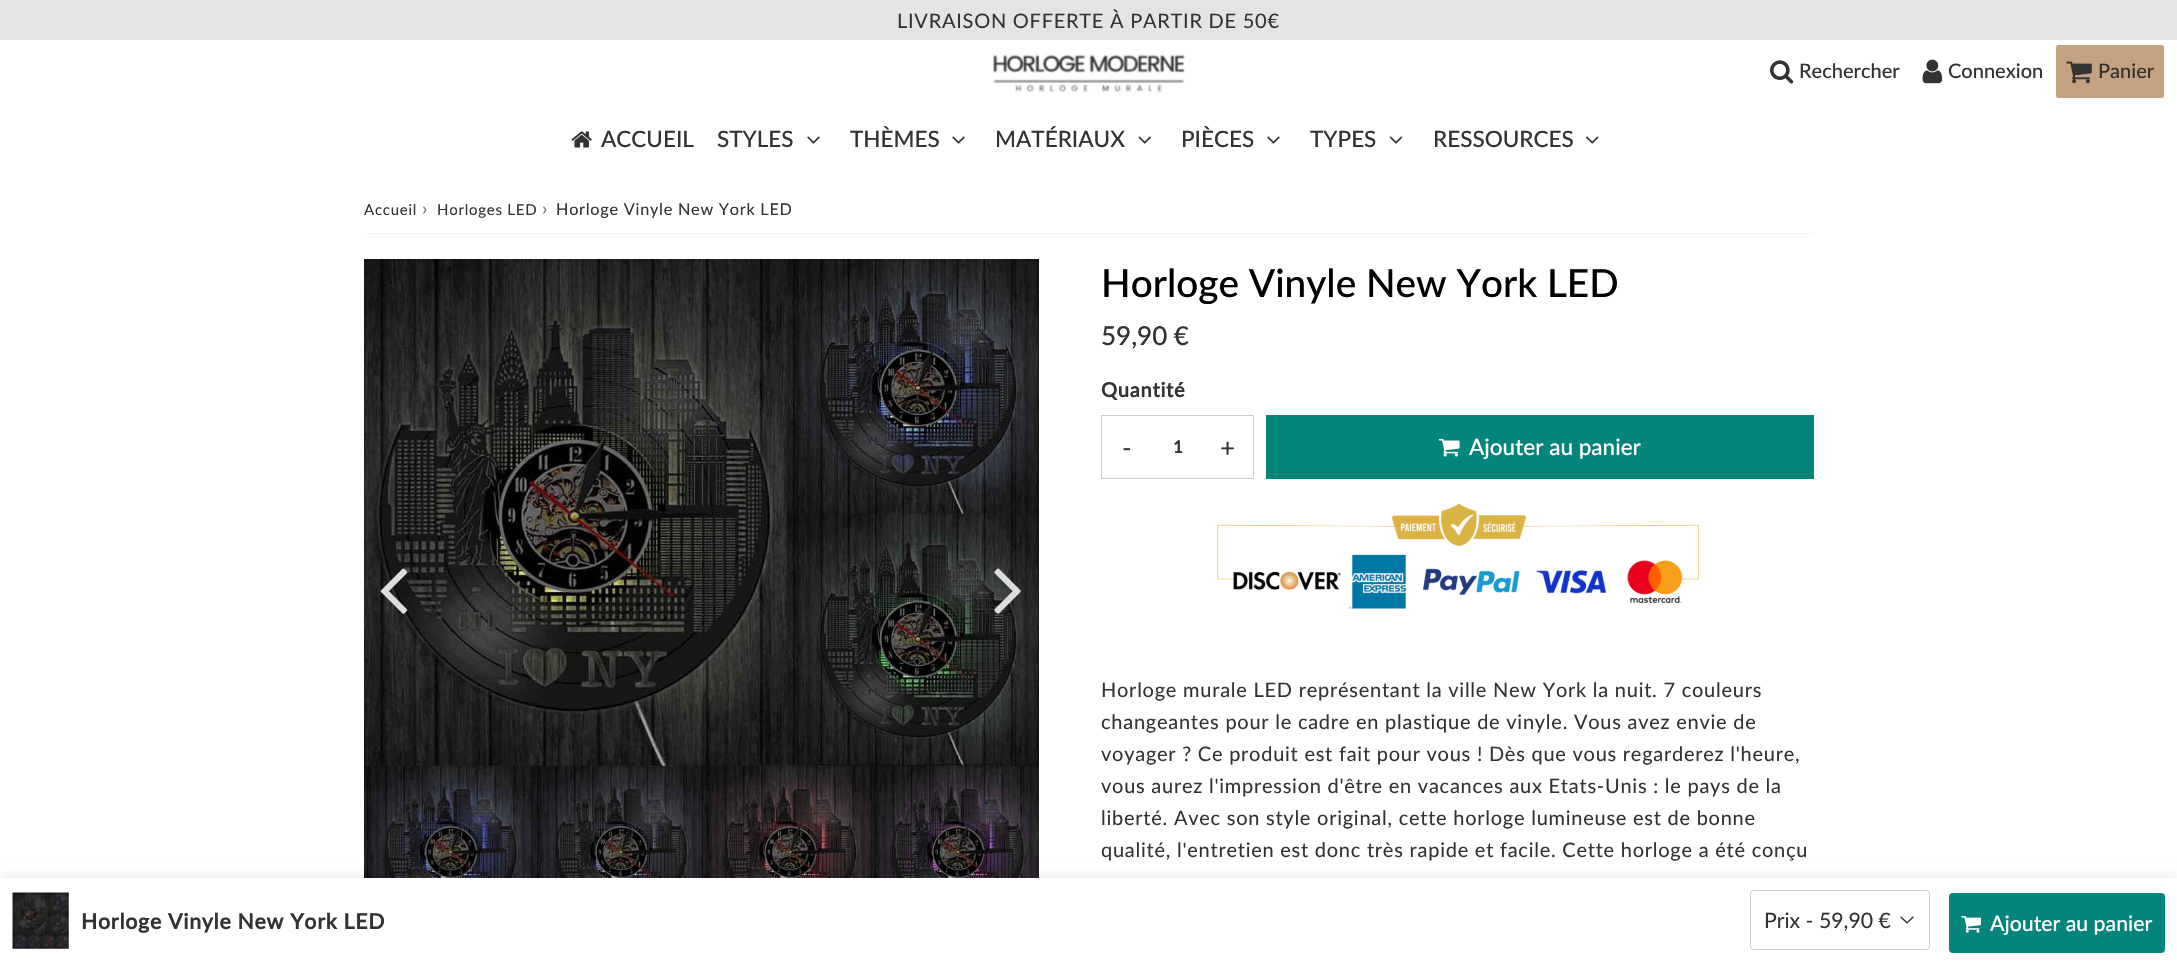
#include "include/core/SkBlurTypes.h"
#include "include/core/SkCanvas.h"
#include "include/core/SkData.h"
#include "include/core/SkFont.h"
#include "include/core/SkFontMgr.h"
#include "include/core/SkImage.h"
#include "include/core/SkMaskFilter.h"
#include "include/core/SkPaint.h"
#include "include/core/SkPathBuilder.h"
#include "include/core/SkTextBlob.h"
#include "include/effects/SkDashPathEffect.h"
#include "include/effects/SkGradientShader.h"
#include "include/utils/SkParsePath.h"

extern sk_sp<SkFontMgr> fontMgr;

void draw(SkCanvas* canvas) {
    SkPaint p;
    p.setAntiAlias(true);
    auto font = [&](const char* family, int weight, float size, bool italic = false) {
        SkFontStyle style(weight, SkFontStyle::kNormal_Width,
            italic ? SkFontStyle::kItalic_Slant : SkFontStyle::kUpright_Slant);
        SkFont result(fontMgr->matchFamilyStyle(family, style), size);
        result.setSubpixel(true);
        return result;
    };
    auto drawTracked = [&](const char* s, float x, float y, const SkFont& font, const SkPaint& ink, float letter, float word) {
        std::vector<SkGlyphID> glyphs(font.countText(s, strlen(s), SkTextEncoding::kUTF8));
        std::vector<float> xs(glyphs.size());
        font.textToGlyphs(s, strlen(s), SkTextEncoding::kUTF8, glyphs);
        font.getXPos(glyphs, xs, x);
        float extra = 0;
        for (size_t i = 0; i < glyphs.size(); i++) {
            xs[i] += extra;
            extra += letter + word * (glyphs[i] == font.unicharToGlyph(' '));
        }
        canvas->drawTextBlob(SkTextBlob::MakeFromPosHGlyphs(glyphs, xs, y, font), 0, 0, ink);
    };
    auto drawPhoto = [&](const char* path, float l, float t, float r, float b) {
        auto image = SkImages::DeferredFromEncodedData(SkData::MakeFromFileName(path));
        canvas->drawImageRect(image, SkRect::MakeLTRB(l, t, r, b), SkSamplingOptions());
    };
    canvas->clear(0xFFFFFFFF);
    p.setColor(0xFFE4E4E4);
    canvas->drawRect(SkRect::MakeLTRB(0, 0, 2177, 40), p);
    auto font1 = font("Lato", 400, 20);
    p.setColor(0xFF333333);
    drawTracked("LIVRAISON OFFERTE À PARTIR DE 50€", 897, 28, font1, p, 0.75f, 0);
    drawPhoto("media/1.png", 992, 54, 1186, 94);
    drawPhoto("media/2.png", 1770, 60, 1794, 84);
    auto font2 = font("Lato", 500, 20);
    canvas->drawString("Rechercher", 1799, 78, font2, p);
    drawPhoto("media/3.png", 1922, 59, 1943, 84);
    canvas->drawString("Connexion", 1948, 78, font2, p);
    p.setColor(0xFFC4A181);
    canvas->drawRoundRect(SkRect::MakeLTRB(2056, 45, 2164, 98), 2.5f, 2.5f, p);
    drawPhoto("media/4.png", 2066, 61, 2092, 84);
    p.setColor(0xFF333333);
    canvas->drawString("Panier", 2098, 78, font2, p);
    drawPhoto("media/5.png", 571, 131, 592, 148);
    auto font3 = font("Lato", 500, 22.5f);
    canvas->drawString("ACCUEIL", 601, 147, font3, p);
    canvas->drawString("STYLES", 717, 147, font3, p);
    drawPhoto("media/6.png", 807, 136, 820, 144);
    canvas->drawString("THÈMES", 850, 147, font3, p);
    drawPhoto("media/6.png", 952, 136, 965, 144);
    canvas->drawString("MATÉRIAUX", 995, 147, font3, p);
    drawPhoto("media/7.png", 1138, 136, 1151, 144);
    canvas->drawString("PIÈCES", 1181, 147, font3, p);
    drawPhoto("media/6.png", 1267, 136, 1280, 144);
    canvas->drawString("TYPES", 1310, 147, font3, p);
    drawPhoto("media/8.png", 1389, 136, 1403, 144);
    canvas->drawString("RESSOURCES", 1433, 147, font3, p);
    drawPhoto("media/9.png", 1586, 136, 1599, 144);
    p.setColor(0xFFF5F5F5);
    canvas->drawRect(SkRect::MakeLTRB(364, 233, 1814, 234), p);
    auto font4 = font("Lato", 400, 15);
    p.setColor(0xFF333333);
    drawTracked("Accueil", 364, 215, font4, p, 0.75f, 0);
    auto font5 = font("Lato", 400, 19);
    p.setColor(0xFF767676);
    drawTracked("›", 422, 215, font5, p, 0.75f, 0);
    p.setColor(0xFF333333);
    drawTracked("Horloges LED", 437, 215, font4, p, 0.75f, 0);
    p.setColor(0xFF767676);
    drawTracked("›", 542, 215, font5, p, 0.75f, 0);
    auto font6 = font("Lato", 400, 16.25f);
    p.setColor(0xFF333333);
    drawTracked("Horloge Vinyle New York LED", 556, 215, font6, p, 0.75f, 0);
    drawPhoto("media/10.png", 364, 259, 1039, 878);
    drawPhoto("media/11.png", 380, 568, 408, 614);
    drawPhoto("media/12.png", 994, 568, 1021, 614);
    auto font7 = font("Lato", 500, 38.75f);
    p.setColor(0xFF000000);
    canvas->drawString("Horloge Vinyle New York LED", 1101, 297, font7, p);
    auto font8 = font("Lato", 500, 26);
    p.setColor(0xFF333333);
    canvas->drawString("59,90 €", 1101, 345, font8, p);
    auto font9 = font("Lato", 700, 20);
    drawTracked("Quantité", 1101, 397, font9, p, 0.75f, 0);
    p.setStyle(SkPaint::kStroke_Style);
    p.setStrokeWidth(1);
    p.setColor(0xFFCCCCCC);
    canvas->drawRect(SkRect::MakeLTRB(1101.5f, 415.5f, 1253.5f, 478.5f), p);
    auto font10 = font("Lato", 400, 26);
    p.setStyle(SkPaint::kFill_Style);
    p.setColor(0xFF333333);
    drawTracked("-", 1122, 457, font10, p, 0.75f, 0);
    auto font11 = font("Lato", 700, 17);
    canvas->drawString("1", 1173, 453, font11, p);
    drawTracked("+", 1220, 457, font10, p, 0.75f, 0);
    p.setColor(0xFF03857C);
    canvas->drawRect(SkRect::MakeLTRB(1266, 415, 1814, 479), p);
    drawPhoto("media/13.png", 1438, 438, 1460, 457);
    p.setColor(0xFFFFFFFF);
    canvas->drawString("Ajouter au panier", 1469, 455, font3, p);
    drawPhoto("media/14.png", 1217, 504, 1699, 609);
    p.setColor(0xFF333333);
    {
        const struct { const char* s; float x, y; } items[] = {
            {"Horloge murale LED représentant la ville New York la nuit. 7 couleurs", 1101, 697},
            {"changeantes pour le cadre en plastique de vinyle. Vous avez envie de", 1101, 729},
            {"voyager ? Ce produit est fait pour vous ! Dès que vous regarderez l'heure,", 1101, 761},
            {"vous aurez l'impression d'être en vacances aux Etats-Unis : le pays de la", 1101, 793},
            {"liberté. Avec son style original, cette horloge lumineuse est de bonne", 1101, 825},
            {"qualité, l'entretien est donc très rapide et facile. Cette horloge a été conçu", 1101, 857},
        };
        for (auto [s, x, y] : items) {
            drawTracked(s, x, y, font1, p, 0.75f, 0);
        }
    }
    p.setColor(0x1A000000);
    p.setMaskFilter(SkMaskFilter::MakeBlur(kNormal_SkBlurStyle, 6));
    canvas->drawRect(SkRect::MakeLTRB(0, 878, 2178, 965), p);
    p.setMaskFilter(nullptr);
    p.setColor(0xFFFFFFFF);
    canvas->drawRect(SkRect::MakeLTRB(0, 878, 2177, 964), p);
    drawPhoto("media/15.png", 12, 892, 69, 949);
    auto font12 = font("Lato", 700, 21.25f);
    p.setColor(0xFF333333);
    drawTracked("Horloge Vinyle New York LED", 81, 929, font12, p, 0.75f, 0);
    drawPhoto("media/16.png", 1900, 916, 1914, 924);
    p.setStyle(SkPaint::kStroke_Style);
    p.setColor(0xFFCCCCCC);
    canvas->drawRoundRect(SkRect::MakeLTRB(1750.5f, 890.5f, 1929.5f, 949.5f), 3.5f, 3.5f, p);
    auto font13 = font("Lato", 400, 21.25f);
    p.setStyle(SkPaint::kFill_Style);
    p.setColor(0xFF333333);
    canvas->drawString("Prix - 59,90 €", 1764, 928, font13, p);
    p.setColor(0xFF03857C);
    canvas->drawRoundRect(SkRect::MakeLTRB(1949, 893, 2165, 953), 4, 4, p);
    drawPhoto("media/17.png", 1961, 916, 1981, 933);
    auto font14 = font("Lato", 500, 21.25f);
    p.setColor(0xFFFFFFFF);
    canvas->drawString("Ajouter au panier", 1990, 931, font14, p);
}
